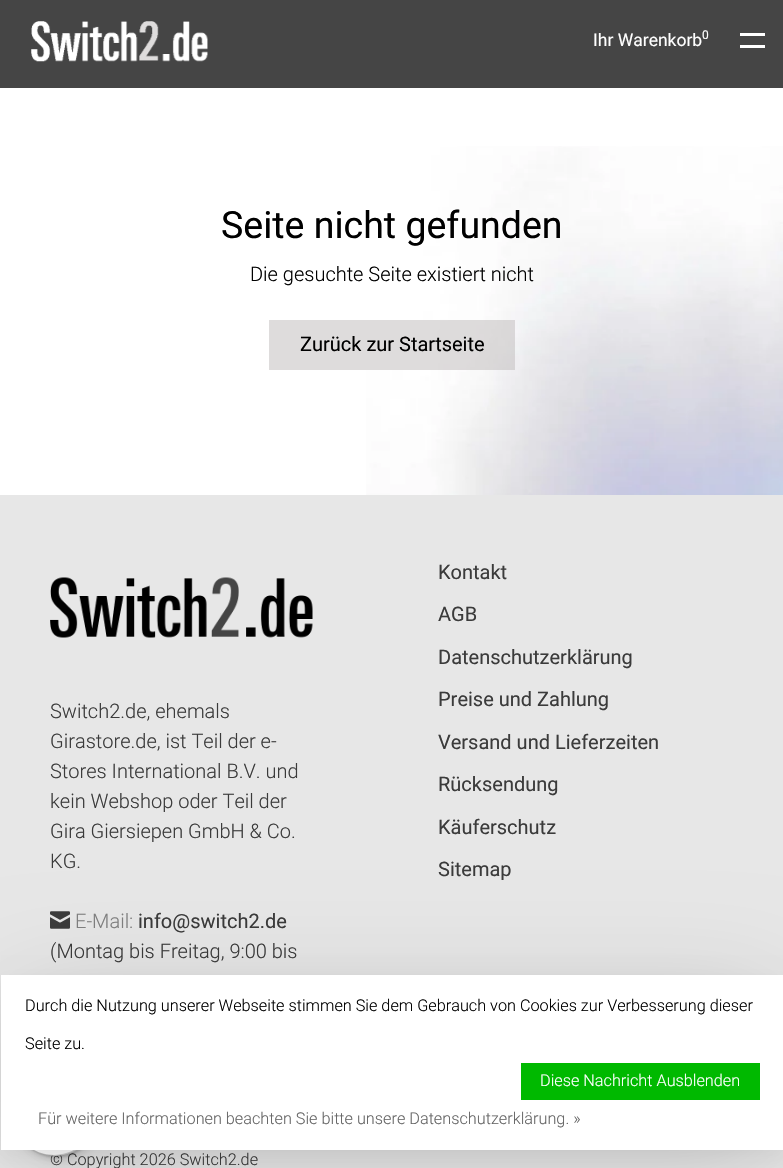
#include "include/core/SkBlurTypes.h"
#include "include/core/SkCanvas.h"
#include "include/core/SkData.h"
#include "include/core/SkFont.h"
#include "include/core/SkFontMgr.h"
#include "include/core/SkImage.h"
#include "include/core/SkMaskFilter.h"
#include "include/core/SkPaint.h"
#include "include/core/SkPathBuilder.h"
#include "include/core/SkTextBlob.h"
#include "include/effects/SkDashPathEffect.h"
#include "include/effects/SkGradientShader.h"
#include "include/utils/SkParsePath.h"

extern sk_sp<SkFontMgr> fontMgr;

void draw(SkCanvas* canvas) {
    SkPaint p;
    p.setAntiAlias(true);
    auto font = [&](const char* family, int weight, float size, bool italic = false) {
        SkFontStyle style(weight, SkFontStyle::kNormal_Width,
            italic ? SkFontStyle::kItalic_Slant : SkFontStyle::kUpright_Slant);
        SkFont result(fontMgr->matchFamilyStyle(family, style), size);
        result.setSubpixel(true);
        return result;
    };
    auto drawPhoto = [&](const char* path, float l, float t, float r, float b) {
        auto image = SkImages::DeferredFromEncodedData(SkData::MakeFromFileName(path));
        canvas->drawImageRect(image, SkRect::MakeLTRB(l, t, r, b), SkSamplingOptions());
    };
    canvas->clear(0xFFFFFFFF);
    drawPhoto("media/1.png", 366, 146, 783, 495);
    p.setColor(0xFF454545);
    canvas->drawRect(SkRect::MakeLTRB(0, 0, 783, 88), p);
    drawPhoto("media/2.png", 31, 21, 208, 62);
    auto font1 = font("Roboto", 400, 17.5f);
    p.setColor(0xFFFFFFFF);
    canvas->drawString("Ihr Warenkorb", 593, 46, font1, p);
    auto font2 = font("Roboto", 400, 12);
    canvas->drawString("0", 702, 39, font2, p);
    canvas->drawRect(SkRect::MakeLTRB(740, 33, 765, 36), p);
    canvas->drawRect(SkRect::MakeLTRB(740, 45, 765, 48), p);
    auto font3 = font("Roboto", 400, 37.5f);
    p.setColor(0xFF000000);
    canvas->drawString("Seite nicht gefunden", 221, 238, font3, p);
    auto font4 = font("Roboto", 300, 20);
    canvas->drawString("Die gesuchte Seite existiert nicht", 250, 281, font4, p);
    p.setColor(0x80BEB9B9);
    canvas->drawRect(SkRect::MakeLTRB(269, 320, 515, 370), p);
    auto font5 = font("Roboto", 400, 20);
    p.setColor(0xFF000000);
    canvas->drawString("Zurück zur Startseite", 300, 351, font5, p);
    p.setColor(0xFFE7E7E7);
    canvas->drawRect(SkRect::MakeLTRB(0, 495, 783, 1168), p);
    drawPhoto("media/3.png", 50, 577, 313, 638);
    p.setColor(0xFF3B3B3B);
    {
        const struct { const char* s; float x, y; } items[] = {
            {"Switch2.de, ehemals", 50, 718},
            {"Girastore.de, ist Teil der e-", 50, 748},
            {"Stores International B.V. und", 50, 778},
            {"kein Webshop oder Teil der", 50, 808},
            {"Gira Giersiepen GmbH & Co.", 50, 838},
            {"KG.", 50, 868},
        };
        for (auto [s, x, y] : items) {
            canvas->drawString(s, x, y, font4, p);
        }
    }
    drawPhoto("media/4.png", 50, 911, 70, 929);
    p.setColor(0xFF808080);
    canvas->drawString("E-Mail:", 75, 928, font4, p);
    p.setColor(0xFF3B3B3B);
    canvas->drawString("info@switch2.de", 138, 928, font5, p);
    canvas->drawString("(Montag bis Freitag, 9:00 bis", 50, 958, font4, p);
    {
        const struct { const char* s; float x, y; } items[] = {
            {"Kontakt", 438, 579},
            {"AGB", 438, 621},
            {"Datenschutzerklärung", 438, 664},
            {"Preise und Zahlung", 438, 706},
            {"Versand und Lieferzeiten", 438, 749},
            {"Rücksendung", 438, 791},
            {"Käuferschutz", 438, 834},
            {"Sitemap", 438, 876},
        };
        for (auto [s, x, y] : items) {
            canvas->drawString(s, x, y, font5, p);
        }
    }
    auto font6 = font("Roboto", 300, 16.25f);
    canvas->drawString("© Copyright 2026 Switch2.de", 50, 1165, font6, p);
    p.setColor(0x26000000);
    p.setMaskFilter(SkMaskFilter::MakeBlur(kNormal_SkBlurStyle, 5));
    canvas->drawRoundRect(SkRect::MakeLTRB(16, 1020, 101, 1160), 42.5f, 42.5f, p);
    p.setMaskFilter(nullptr);
    p.setMaskFilter(SkMaskFilter::MakeBlur(kNormal_SkBlurStyle, 1));
    canvas->drawRoundRect(SkRect::MakeLTRB(14, 1018, 99, 1158), 42.5f, 42.5f, p);
    p.setMaskFilter(nullptr);
    p.setColor(0xFFFFFFFF);
    canvas->drawRoundRect(SkRect::MakeLTRB(13, 1016, 98, 1156), 42.5f, 42.5f, p);
    p.setColor(0x33000000);
    canvas->drawPath(SkPathBuilder().moveTo(34, 1150).cubicTo(59, 1165, 91, 1151, 97, 1122).cubicTo(99, 1112, 98, 1097, 98, 1086).cubicTo(98, 1060, 102, 1034, 75, 1021).cubicTo(100, 1035, 96, 1060, 96, 1085).cubicTo(96, 1096, 97, 1110, 95, 1121).cubicTo(90, 1149, 59, 1163, 34, 1150).close().detach(), p);
    p.setColor(0x33323232);
    canvas->drawPath(SkPathBuilder().moveTo(56, 1016).lineTo(55, 1016).cubicTo(78, 1016, 97, 1035, 97, 1058).lineTo(97, 1113).cubicTo(97, 1136, 78, 1156, 55, 1156).lineTo(56, 1156).cubicTo(79, 1156, 98, 1137, 98, 1114).lineTo(98, 1058).cubicTo(98, 1035, 79, 1016, 56, 1016).close().detach(), p);
    p.setColor(0x4DFFFFFF);
    canvas->drawPath(SkPathBuilder().moveTo(56, 1016).lineTo(55, 1016).cubicTo(78, 1016, 97, 1035, 97, 1058).lineTo(97, 1113).cubicTo(97, 1137, 78, 1156, 55, 1156).lineTo(56, 1156).cubicTo(79, 1156, 98, 1137, 98, 1114).lineTo(98, 1058).cubicTo(98, 1035, 79, 1016, 56, 1016).close().detach(), p);
    p.setColor(0x0D000000);
    p.setMaskFilter(SkMaskFilter::MakeBlur(kNormal_SkBlurStyle, 9.5f));
    canvas->drawRect(SkRect::MakeLTRB(1, 983, 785, 1158), p);
    p.setMaskFilter(nullptr);
    p.setColor(0x26000000);
    p.setMaskFilter(SkMaskFilter::MakeBlur(kNormal_SkBlurStyle, 54));
    canvas->drawRect(SkRect::MakeLTRB(9, 1000, 778, 1160), p);
    p.setMaskFilter(nullptr);
    p.setColor(0xFFFFFFFF);
    canvas->drawRect(SkRect::MakeLTRB(1, 975, 783, 1150), p);
    p.setColor(0xFF000000);
    canvas->drawString("Durch die Nutzung unserer Webseite stimmen Sie dem Gebrauch von Cookies zur Verbesserung dieser", 25, 1011, font6, p);
    canvas->drawString("Seite zu.", 25, 1049, font6, p);
    p.setColor(0xFF00B900);
    canvas->drawRect(SkRect::MakeLTRB(521, 1063, 760, 1100), p);
    p.setColor(0xFFFFFFFF);
    canvas->drawString("Diese Nachricht Ausblenden", 540, 1086, font6, p);
    p.setColor(0xFF666666);
    canvas->drawString("Für weitere Informationen beachten Sie bitte unsere Datenschutzerklärung. »", 38, 1124, font6, p);
}
